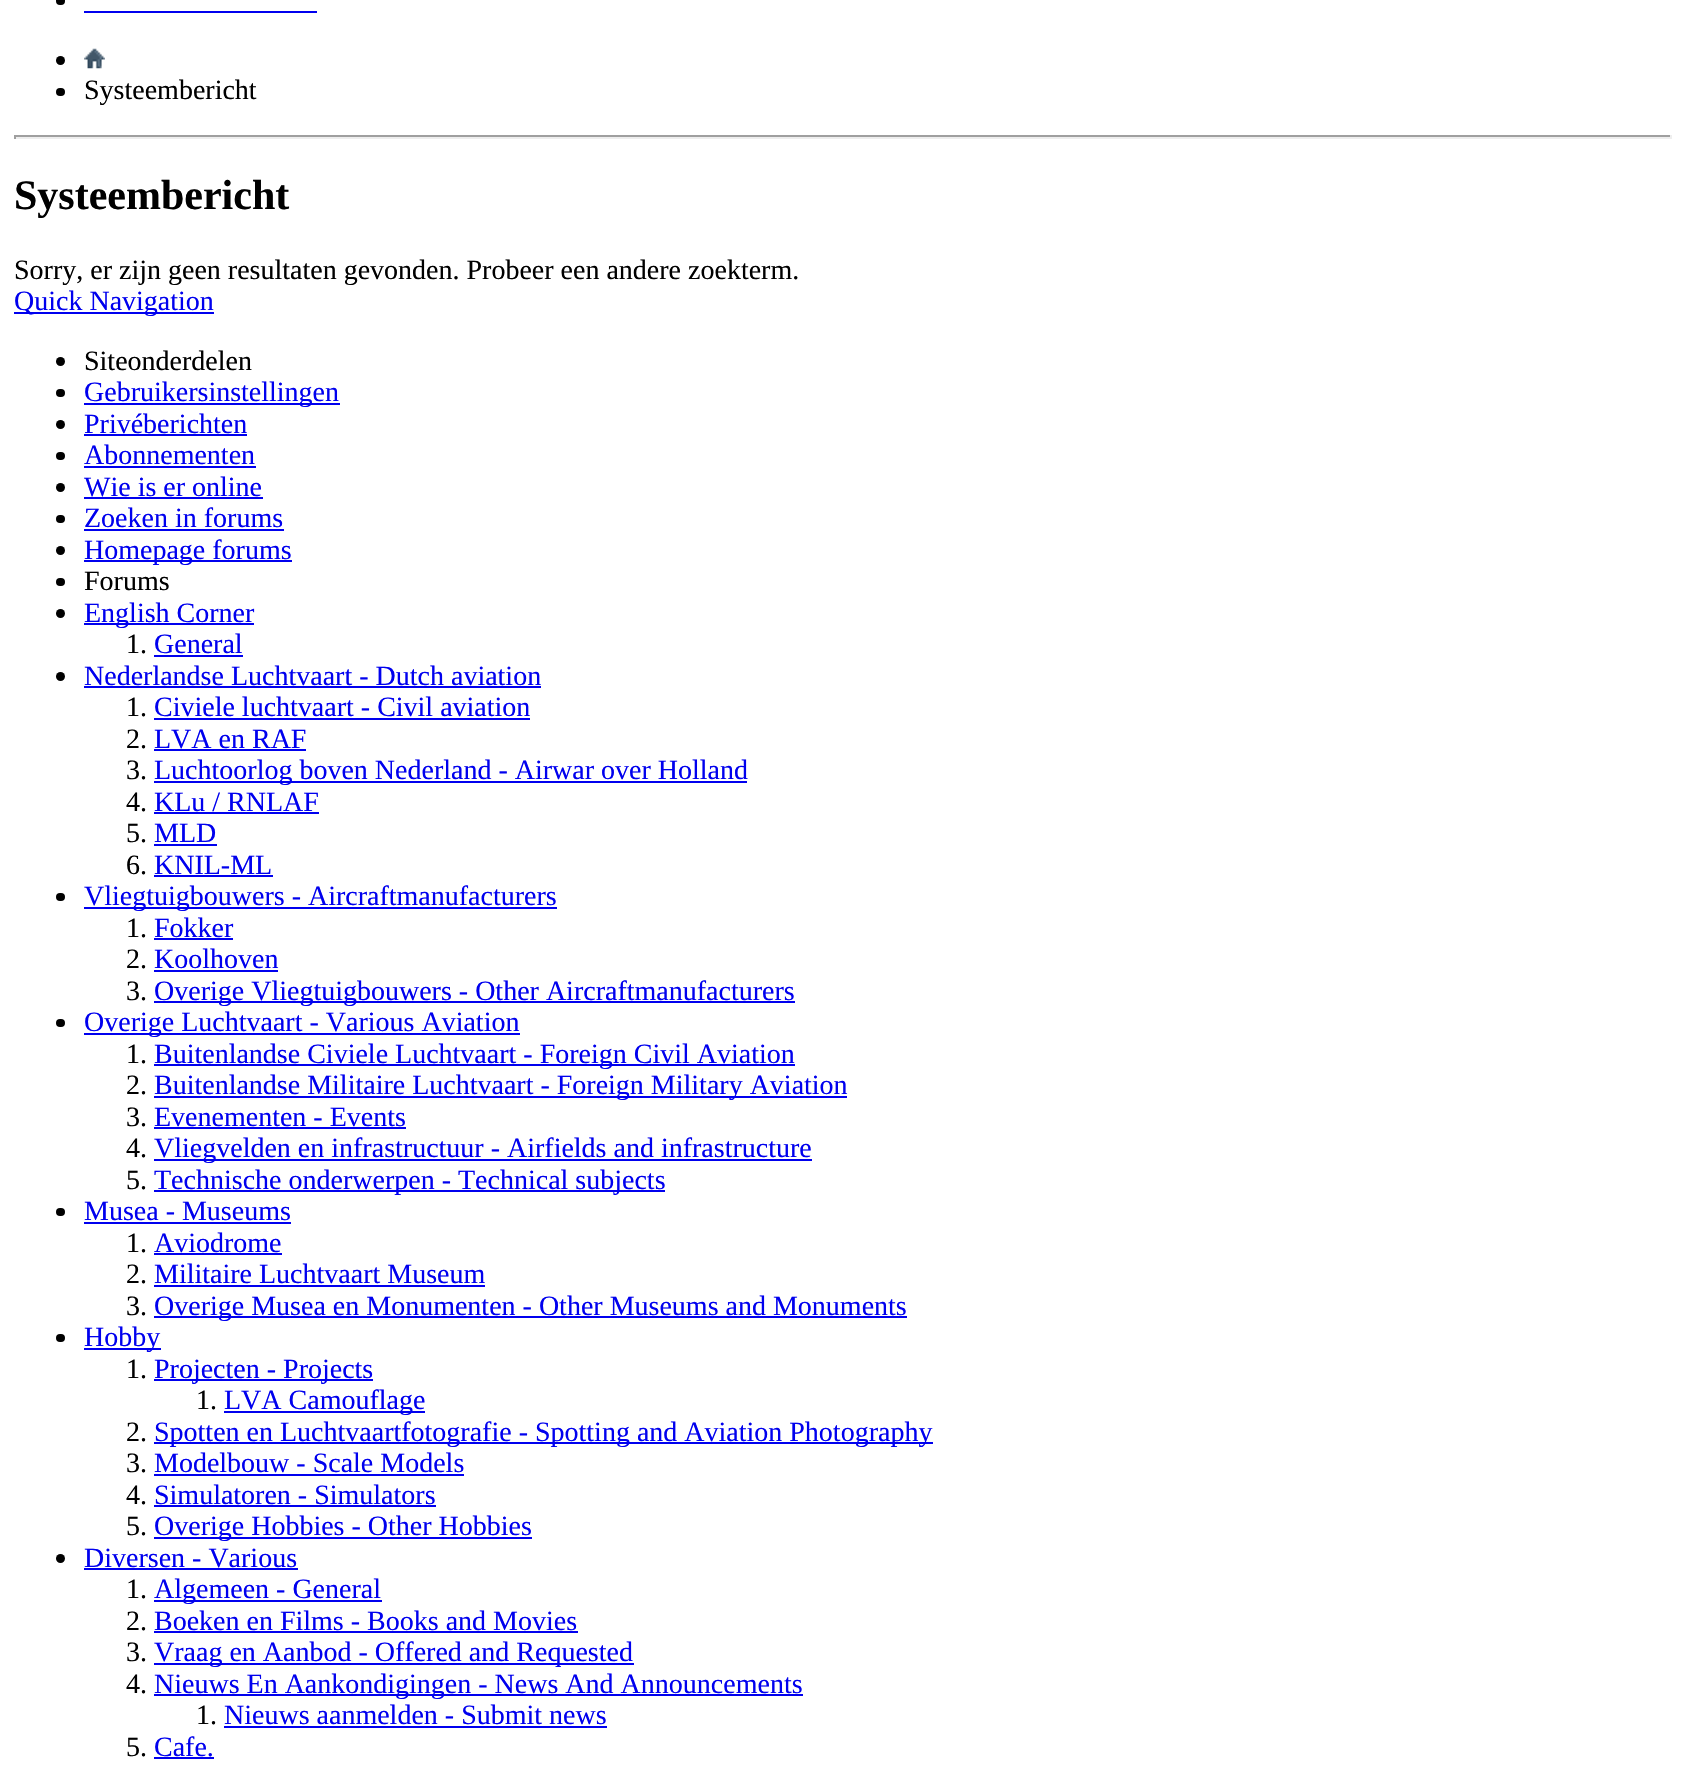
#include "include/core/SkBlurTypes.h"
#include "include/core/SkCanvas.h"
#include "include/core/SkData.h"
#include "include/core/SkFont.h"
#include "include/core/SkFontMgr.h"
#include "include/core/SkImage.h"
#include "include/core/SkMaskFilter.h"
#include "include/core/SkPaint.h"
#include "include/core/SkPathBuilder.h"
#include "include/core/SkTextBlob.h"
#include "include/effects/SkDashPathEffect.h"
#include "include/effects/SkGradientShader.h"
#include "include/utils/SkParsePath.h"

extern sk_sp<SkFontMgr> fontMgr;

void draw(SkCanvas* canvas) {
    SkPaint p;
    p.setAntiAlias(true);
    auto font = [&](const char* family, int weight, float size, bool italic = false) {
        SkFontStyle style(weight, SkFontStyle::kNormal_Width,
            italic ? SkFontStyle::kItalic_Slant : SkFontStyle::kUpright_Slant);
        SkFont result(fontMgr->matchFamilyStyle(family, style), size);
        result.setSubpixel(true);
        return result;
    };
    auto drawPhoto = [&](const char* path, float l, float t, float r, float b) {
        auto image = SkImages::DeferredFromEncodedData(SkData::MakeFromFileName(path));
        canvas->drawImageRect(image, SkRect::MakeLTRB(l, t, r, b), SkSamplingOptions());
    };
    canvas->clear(0xFFFFFFFF);
    p.setColor(0xFF000000);
    canvas->drawRoundRect(SkRect::MakeLTRB(56, -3, 65, 5), 4, 4, p);
    p.setColor(0xFF0000EE);
    canvas->drawRect(SkRect::MakeLTRB(84, 11, 317, 13), p);
    p.setColor(0xFF000000);
    canvas->drawCircle(60.5f, 60.5f, 4.5f, p);
    drawPhoto("media/1.png", 84, 48, 105, 69);
    canvas->drawRoundRect(SkRect::MakeLTRB(56, 88, 65, 96), 4, 4, p);
    auto font1 = font("Liberation Serif", 400, 28);
    canvas->drawString("Systeembericht", 84, 99, font1, p);
    {
        const struct { float l, t, r, b; SkColor color; } items[] = {
            {14, 135, 1671, 137, 0xFF9F9F9F},
            {1670, 135, 1672, 139, 0xFFEEEEEE},
            {14, 137, 1671, 139, 0xFFEEEEEE},
            {14, 135, 16, 139, 0xFF9F9F9F},
        };
        for (auto [l, t, r, b, color] : items) {
            p.setColor(color);
            canvas->drawRect(SkRect::MakeLTRB(l, t, r, b), p);
        }
    }
    auto font2 = font("Liberation Serif", 700, 42);
    p.setColor(0xFF000000);
    canvas->drawString("Systeembericht", 14, 209, font2, p);
    canvas->drawString("Sorry, er zijn geen resultaten gevonden. Probeer een andere zoekterm.", 14, 279, font1, p);
    p.setColor(0xFF0000EE);
    canvas->drawRect(SkRect::MakeLTRB(14, 312, 214, 314), p);
    canvas->drawString("Quick Navigation", 14, 310, font1, p);
    p.setColor(0xFF000000);
    canvas->drawCircle(60.5f, 361.5f, 4.5f, p);
    canvas->drawString("Siteonderdelen", 84, 370, font1, p);
    canvas->drawRoundRect(SkRect::MakeLTRB(56, 389, 65, 397), 4, 4, p);
    p.setColor(0xFF0000EE);
    canvas->drawRect(SkRect::MakeLTRB(84, 403, 340, 405), p);
    canvas->drawString("Gebruikersinstellingen", 84, 401, font1, p);
    p.setColor(0xFF000000);
    canvas->drawCircle(60.5f, 424.5f, 4.5f, p);
    p.setColor(0xFF0000EE);
    canvas->drawString("Privéberichten", 84, 433, font1, p);
    canvas->drawRect(SkRect::MakeLTRB(84, 434, 247, 436), p);
    p.setColor(0xFF000000);
    canvas->drawRoundRect(SkRect::MakeLTRB(56, 452, 65, 460), 4, 4, p);
    p.setColor(0xFF0000EE);
    canvas->drawString("Abonnementen", 84, 464, font1, p);
    canvas->drawRect(SkRect::MakeLTRB(84, 466, 256, 468), p);
    p.setColor(0xFF000000);
    canvas->drawCircle(60.5f, 487.5f, 4.5f, p);
    p.setColor(0xFF0000EE);
    canvas->drawString("Wie is er online", 84, 496, font1, p);
    canvas->drawRect(SkRect::MakeLTRB(84, 497, 263, 499), p);
    p.setColor(0xFF000000);
    canvas->drawRoundRect(SkRect::MakeLTRB(56, 515, 65, 523), 4, 4, p);
    p.setColor(0xFF0000EE);
    canvas->drawString("Zoeken in forums", 84, 527, font1, p);
    canvas->drawRect(SkRect::MakeLTRB(84, 529, 284, 531), p);
    p.setColor(0xFF000000);
    canvas->drawCircle(60.5f, 550.5f, 4.5f, p);
    p.setColor(0xFF0000EE);
    canvas->drawRect(SkRect::MakeLTRB(84, 560, 292, 562), p);
    canvas->drawString("Homepage forums", 84, 559, font1, p);
    p.setColor(0xFF000000);
    canvas->drawRoundRect(SkRect::MakeLTRB(56, 578, 65, 586), 4, 4, p);
    canvas->drawString("Forums", 84, 590, font1, p);
    canvas->drawCircle(60.5f, 613.5f, 4.5f, p);
    p.setColor(0xFF0000EE);
    canvas->drawRect(SkRect::MakeLTRB(84, 623, 254, 625), p);
    canvas->drawString("English Corner", 84, 622, font1, p);
    p.setColor(0xFF000000);
    canvas->drawString("1.", 126, 653, font1, p);
    p.setColor(0xFF0000EE);
    canvas->drawString("General", 154, 653, font1, p);
    canvas->drawRect(SkRect::MakeLTRB(154, 655, 243, 657), p);
    p.setColor(0xFF000000);
    canvas->drawCircle(60.5f, 676.5f, 4.5f, p);
    p.setColor(0xFF0000EE);
    canvas->drawString("Nederlandse Luchtvaart - Dutch aviation", 84, 685, font1, p);
    canvas->drawRect(SkRect::MakeLTRB(84, 686, 541, 688), p);
    p.setColor(0xFF000000);
    canvas->drawString("1.", 126, 716, font1, p);
    p.setColor(0xFF0000EE);
    canvas->drawString("Civiele luchtvaart - Civil aviation", 154, 716, font1, p);
    canvas->drawRect(SkRect::MakeLTRB(154, 718, 530, 720), p);
    p.setColor(0xFF000000);
    canvas->drawString("2.", 126, 748, font1, p);
    p.setColor(0xFF0000EE);
    canvas->drawString("LVA en RAF", 154, 748, font1, p);
    canvas->drawRect(SkRect::MakeLTRB(154, 749, 306, 751), p);
    p.setColor(0xFF000000);
    canvas->drawString("3.", 126, 779, font1, p);
    p.setColor(0xFF0000EE);
    canvas->drawRect(SkRect::MakeLTRB(154, 781, 747, 783), p);
    canvas->drawString("Luchtoorlog boven Nederland - Airwar over Holland", 154, 779, font1, p);
    p.setColor(0xFF000000);
    canvas->drawString("4.", 126, 811, font1, p);
    p.setColor(0xFF0000EE);
    canvas->drawString("KLu / RNLAF", 154, 811, font1, p);
    canvas->drawRect(SkRect::MakeLTRB(154, 812, 319, 814), p);
    p.setColor(0xFF000000);
    canvas->drawString("5.", 126, 842, font1, p);
    p.setColor(0xFF0000EE);
    canvas->drawString("MLD", 154, 842, font1, p);
    canvas->drawRect(SkRect::MakeLTRB(154, 844, 217, 846), p);
    p.setColor(0xFF000000);
    canvas->drawString("6.", 126, 874, font1, p);
    p.setColor(0xFF0000EE);
    canvas->drawString("KNIL-ML", 154, 874, font1, p);
    canvas->drawRect(SkRect::MakeLTRB(154, 875, 273, 877), p);
    p.setColor(0xFF000000);
    canvas->drawRoundRect(SkRect::MakeLTRB(56, 893, 65, 901), 4, 4, p);
    p.setColor(0xFF0000EE);
    canvas->drawRect(SkRect::MakeLTRB(84, 907, 557, 909), p);
    canvas->drawString("Vliegtuigbouwers - Aircraftmanufacturers", 84, 905, font1, p);
    p.setColor(0xFF000000);
    canvas->drawString("1.", 126, 937, font1, p);
    p.setColor(0xFF0000EE);
    canvas->drawString("Fokker", 154, 937, font1, p);
    canvas->drawRect(SkRect::MakeLTRB(154, 938, 233, 940), p);
    p.setColor(0xFF000000);
    canvas->drawString("2.", 126, 968, font1, p);
    p.setColor(0xFF0000EE);
    canvas->drawString("Koolhoven", 154, 968, font1, p);
    canvas->drawRect(SkRect::MakeLTRB(154, 970, 278, 972), p);
    p.setColor(0xFF000000);
    canvas->drawString("3.", 126, 1000, font1, p);
    p.setColor(0xFF0000EE);
    canvas->drawRect(SkRect::MakeLTRB(154, 1001, 795, 1003), p);
    canvas->drawString("Overige Vliegtuigbouwers - Other Aircraftmanufacturers", 154, 1000, font1, p);
    p.setColor(0xFF000000);
    canvas->drawRoundRect(SkRect::MakeLTRB(56, 1019, 65, 1027), 4, 4, p);
    p.setColor(0xFF0000EE);
    canvas->drawRect(SkRect::MakeLTRB(84, 1033, 520, 1035), p);
    canvas->drawString("Overige Luchtvaart - Various Aviation", 84, 1031, font1, p);
    p.setColor(0xFF000000);
    canvas->drawString("1.", 126, 1063, font1, p);
    p.setColor(0xFF0000EE);
    canvas->drawRect(SkRect::MakeLTRB(154, 1064, 795, 1066), p);
    canvas->drawString("Buitenlandse Civiele Luchtvaart - Foreign Civil Aviation", 154, 1063, font1, p);
    p.setColor(0xFF000000);
    canvas->drawString("2.", 126, 1094, font1, p);
    p.setColor(0xFF0000EE);
    canvas->drawRect(SkRect::MakeLTRB(154, 1096, 847, 1098), p);
    canvas->drawString("Buitenlandse Militaire Luchtvaart - Foreign Military Aviation", 154, 1094, font1, p);
    p.setColor(0xFF000000);
    canvas->drawString("3.", 126, 1126, font1, p);
    p.setColor(0xFF0000EE);
    canvas->drawString("Evenementen - Events", 154, 1126, font1, p);
    canvas->drawRect(SkRect::MakeLTRB(154, 1127, 406, 1129), p);
    p.setColor(0xFF000000);
    canvas->drawString("4.", 126, 1157, font1, p);
    p.setColor(0xFF0000EE);
    canvas->drawRect(SkRect::MakeLTRB(154, 1159, 812, 1161), p);
    canvas->drawString("Vliegvelden en infrastructuur - Airfields and infrastructure", 154, 1157, font1, p);
    p.setColor(0xFF000000);
    canvas->drawString("5.", 126, 1189, font1, p);
    p.setColor(0xFF0000EE);
    canvas->drawRect(SkRect::MakeLTRB(154, 1190, 665, 1192), p);
    canvas->drawString("Technische onderwerpen - Technical subjects", 154, 1189, font1, p);
    p.setColor(0xFF000000);
    canvas->drawRoundRect(SkRect::MakeLTRB(56, 1208, 65, 1216), 4, 4, p);
    p.setColor(0xFF0000EE);
    canvas->drawString("Musea - Museums", 84, 1220, font1, p);
    canvas->drawRect(SkRect::MakeLTRB(84, 1222, 291, 1224), p);
    p.setColor(0xFF000000);
    canvas->drawString("1.", 126, 1252, font1, p);
    p.setColor(0xFF0000EE);
    canvas->drawString("Aviodrome", 154, 1252, font1, p);
    canvas->drawRect(SkRect::MakeLTRB(154, 1253, 282, 1255), p);
    p.setColor(0xFF000000);
    canvas->drawString("2.", 126, 1283, font1, p);
    p.setColor(0xFF0000EE);
    canvas->drawString("Militaire Luchtvaart Museum", 154, 1283, font1, p);
    canvas->drawRect(SkRect::MakeLTRB(154, 1285, 485, 1287), p);
    p.setColor(0xFF000000);
    canvas->drawString("3.", 126, 1315, font1, p);
    p.setColor(0xFF0000EE);
    canvas->drawRect(SkRect::MakeLTRB(154, 1316, 907, 1318), p);
    canvas->drawString("Overige Musea en Monumenten - Other Museums and Monuments", 154, 1315, font1, p);
    p.setColor(0xFF000000);
    canvas->drawRoundRect(SkRect::MakeLTRB(56, 1334, 65, 1342), 4, 4, p);
    p.setColor(0xFF0000EE);
    canvas->drawRect(SkRect::MakeLTRB(84, 1348, 161, 1350), p);
    canvas->drawString("Hobby", 84, 1346, font1, p);
    p.setColor(0xFF000000);
    canvas->drawString("1.", 126, 1378, font1, p);
    p.setColor(0xFF0000EE);
    canvas->drawRect(SkRect::MakeLTRB(154, 1379, 373, 1381), p);
    canvas->drawString("Projecten - Projects", 154, 1378, font1, p);
    p.setColor(0xFF000000);
    canvas->drawString("1.", 196, 1409, font1, p);
    p.setColor(0xFF0000EE);
    canvas->drawRect(SkRect::MakeLTRB(224, 1411, 425, 1413), p);
    canvas->drawString("LVA Camouflage", 224, 1409, font1, p);
    p.setColor(0xFF000000);
    canvas->drawString("2.", 126, 1441, font1, p);
    p.setColor(0xFF0000EE);
    canvas->drawRect(SkRect::MakeLTRB(154, 1442, 933, 1444), p);
    canvas->drawString("Spotten en Luchtvaartfotografie - Spotting and Aviation Photography", 154, 1441, font1, p);
    p.setColor(0xFF000000);
    canvas->drawString("3.", 126, 1472, font1, p);
    p.setColor(0xFF0000EE);
    canvas->drawString("Modelbouw - Scale Models", 154, 1472, font1, p);
    canvas->drawRect(SkRect::MakeLTRB(154, 1474, 464, 1476), p);
    p.setColor(0xFF000000);
    canvas->drawString("4.", 126, 1504, font1, p);
    p.setColor(0xFF0000EE);
    canvas->drawString("Simulatoren - Simulators", 154, 1504, font1, p);
    canvas->drawRect(SkRect::MakeLTRB(154, 1505, 436, 1507), p);
    p.setColor(0xFF000000);
    canvas->drawString("5.", 126, 1535, font1, p);
    p.setColor(0xFF0000EE);
    canvas->drawRect(SkRect::MakeLTRB(154, 1537, 532, 1539), p);
    canvas->drawString("Overige Hobbies - Other Hobbies", 154, 1535, font1, p);
    p.setColor(0xFF000000);
    canvas->drawCircle(60.5f, 1558.5f, 4.5f, p);
    p.setColor(0xFF0000EE);
    canvas->drawString("Diversen - Various", 84, 1567, font1, p);
    canvas->drawRect(SkRect::MakeLTRB(84, 1568, 298, 1570), p);
    p.setColor(0xFF000000);
    canvas->drawString("1.", 126, 1598, font1, p);
    p.setColor(0xFF0000EE);
    canvas->drawRect(SkRect::MakeLTRB(154, 1600, 382, 1602), p);
    canvas->drawString("Algemeen - General", 154, 1598, font1, p);
    p.setColor(0xFF000000);
    canvas->drawString("2.", 126, 1630, font1, p);
    p.setColor(0xFF0000EE);
    canvas->drawString("Boeken en Films - Books and Movies", 154, 1630, font1, p);
    canvas->drawRect(SkRect::MakeLTRB(154, 1631, 578, 1633), p);
    p.setColor(0xFF000000);
    canvas->drawString("3.", 126, 1661, font1, p);
    p.setColor(0xFF0000EE);
    canvas->drawRect(SkRect::MakeLTRB(154, 1663, 634, 1665), p);
    canvas->drawString("Vraag en Aanbod - Offered and Requested", 154, 1661, font1, p);
    p.setColor(0xFF000000);
    canvas->drawString("4.", 126, 1693, font1, p);
    p.setColor(0xFF0000EE);
    canvas->drawRect(SkRect::MakeLTRB(154, 1694, 803, 1696), p);
    canvas->drawString("Nieuws En Aankondigingen - News And Announcements", 154, 1693, font1, p);
    p.setColor(0xFF000000);
    canvas->drawString("1.", 196, 1724, font1, p);
    p.setColor(0xFF0000EE);
    canvas->drawString("Nieuws aanmelden - Submit news", 224, 1724, font1, p);
    canvas->drawRect(SkRect::MakeLTRB(224, 1726, 607, 1728), p);
    p.setColor(0xFF000000);
    canvas->drawString("5.", 126, 1756, font1, p);
    p.setColor(0xFF0000EE);
    canvas->drawString("Cafe.", 154, 1756, font1, p);
    canvas->drawRect(SkRect::MakeLTRB(154, 1757, 214, 1759), p);
}
